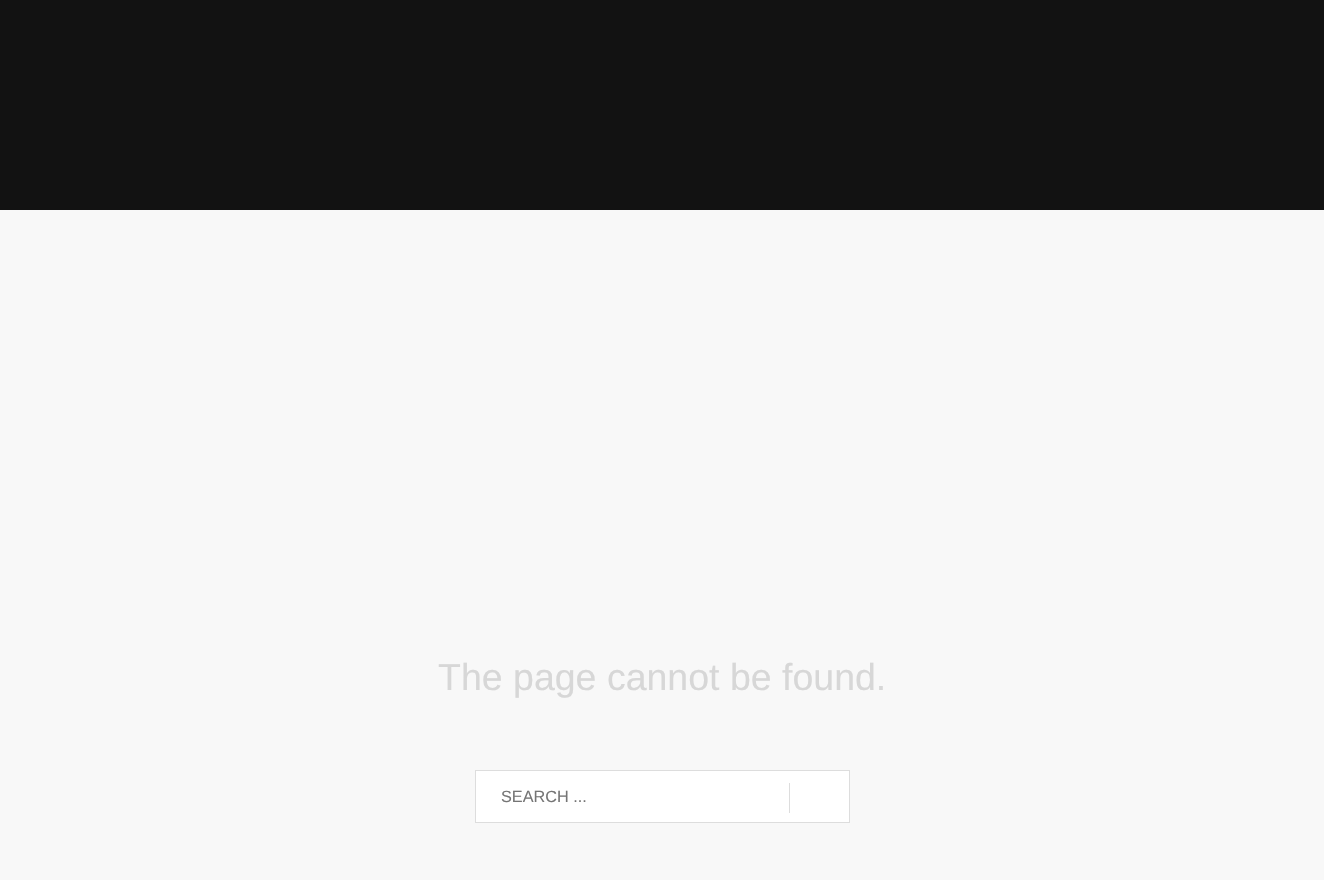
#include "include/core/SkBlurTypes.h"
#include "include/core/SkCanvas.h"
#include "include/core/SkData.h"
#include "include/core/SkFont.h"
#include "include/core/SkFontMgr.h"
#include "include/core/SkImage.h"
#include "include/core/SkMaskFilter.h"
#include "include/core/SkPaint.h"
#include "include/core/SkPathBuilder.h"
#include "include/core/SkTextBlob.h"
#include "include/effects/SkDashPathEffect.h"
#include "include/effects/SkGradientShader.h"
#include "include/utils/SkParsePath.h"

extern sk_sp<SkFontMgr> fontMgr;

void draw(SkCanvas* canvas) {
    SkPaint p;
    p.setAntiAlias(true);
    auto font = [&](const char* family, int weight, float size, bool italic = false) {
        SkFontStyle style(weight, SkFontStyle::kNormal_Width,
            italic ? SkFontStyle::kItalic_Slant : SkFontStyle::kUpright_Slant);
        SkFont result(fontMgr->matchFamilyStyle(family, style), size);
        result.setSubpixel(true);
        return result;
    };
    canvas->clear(0xFFF8F8F8);
    p.setColor(0xFF121212);
    canvas->drawRect(SkRect::MakeLTRB(0, 0, 1324, 210), p);
    auto font1 = font("Liberation Sans", 400, 37.5f);
    p.setColor(0xFFD7D7D7);
    canvas->drawString("The page cannot be found.", 438, 690, font1, p);
    p.setColor(0xFFFFFFFF);
    canvas->drawRect(SkRect::MakeLTRB(475.5f, 770.5f, 849.5f, 822.5f), p);
    p.setStyle(SkPaint::kStroke_Style);
    p.setStrokeWidth(1);
    p.setColor(0xFFDDDDDD);
    canvas->drawRect(SkRect::MakeLTRB(475.5f, 770.5f, 849.5f, 822.5f), p);
    auto font2 = font("Liberation Sans", 400, 16.25f);
    p.setStyle(SkPaint::kFill_Style);
    p.setColor(0xFF757575);
    canvas->drawString("SEARCH ...", 501, 802, font2, p);
    p.setColor(0xFFDDDDDD);
    canvas->drawRect(SkRect::MakeLTRB(789, 783, 790, 813), p);
}
